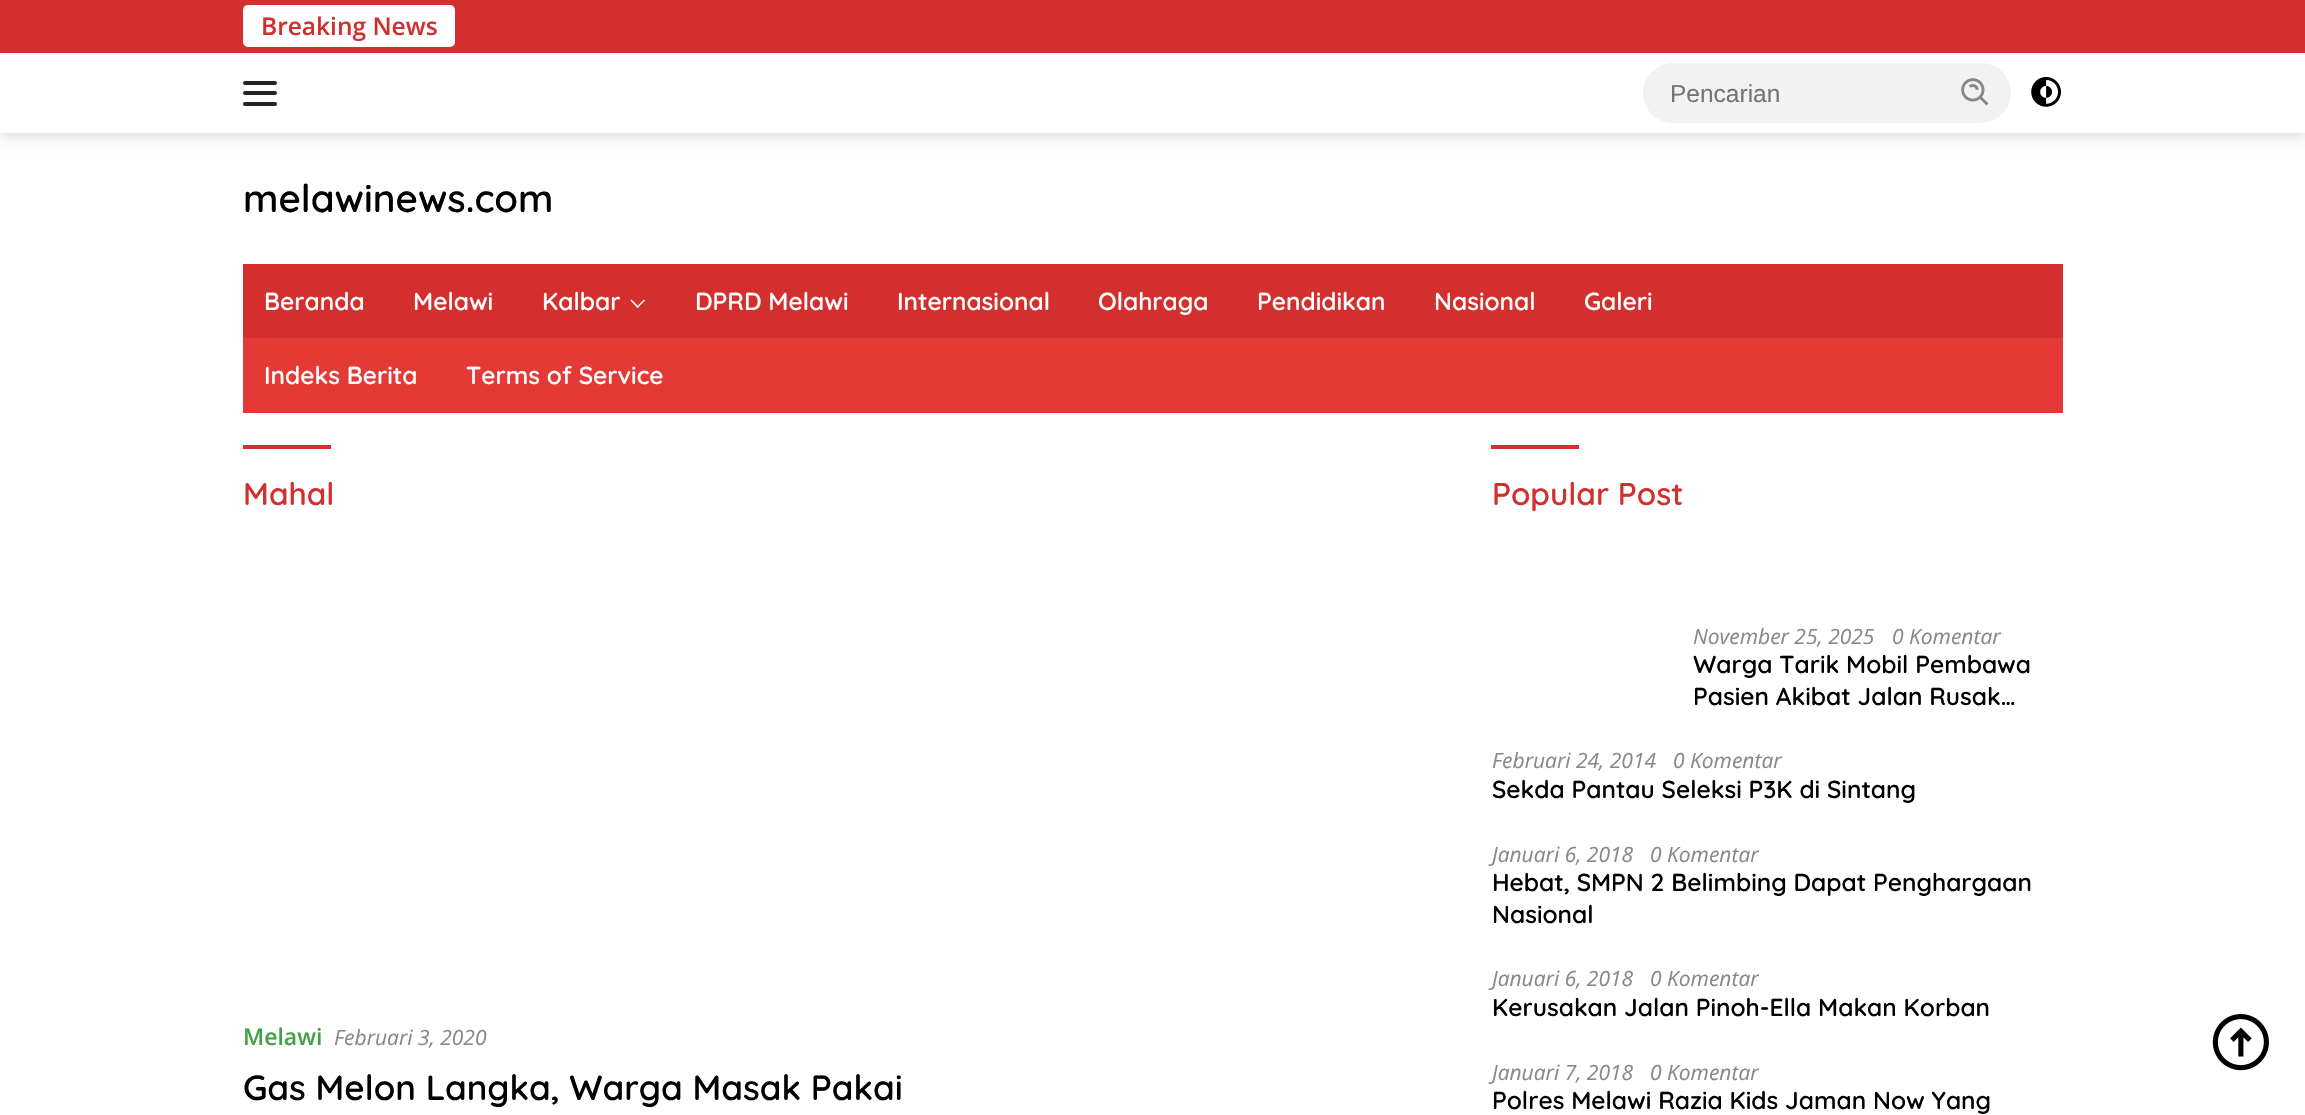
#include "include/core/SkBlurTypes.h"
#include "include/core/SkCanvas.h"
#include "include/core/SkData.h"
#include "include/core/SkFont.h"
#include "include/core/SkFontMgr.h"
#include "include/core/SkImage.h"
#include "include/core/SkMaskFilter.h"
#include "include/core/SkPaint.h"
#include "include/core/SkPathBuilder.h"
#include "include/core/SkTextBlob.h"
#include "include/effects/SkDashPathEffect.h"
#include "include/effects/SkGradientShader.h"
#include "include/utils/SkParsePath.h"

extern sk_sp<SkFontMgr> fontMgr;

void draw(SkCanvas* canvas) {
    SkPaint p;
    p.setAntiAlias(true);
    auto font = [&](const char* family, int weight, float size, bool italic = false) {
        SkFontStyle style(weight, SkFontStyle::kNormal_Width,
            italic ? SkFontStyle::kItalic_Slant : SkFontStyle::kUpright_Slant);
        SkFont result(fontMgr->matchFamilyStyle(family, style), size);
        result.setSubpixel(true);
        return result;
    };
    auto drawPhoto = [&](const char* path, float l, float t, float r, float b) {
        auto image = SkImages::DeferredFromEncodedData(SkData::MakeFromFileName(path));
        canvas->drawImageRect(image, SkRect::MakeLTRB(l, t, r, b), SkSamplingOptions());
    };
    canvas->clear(0xFFFFFFFF);
    p.setColor(0x33000000);
    p.setMaskFilter(SkMaskFilter::MakeBlur(kNormal_SkBlurStyle, 9));
    canvas->drawRect(SkRect::MakeLTRB(0, 0, 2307, 133), p);
    p.setMaskFilter(nullptr);
    p.setColor(0xFFFFFFFF);
    canvas->drawRect(SkRect::MakeLTRB(0, 53, 2305, 133), p);
    p.setColor(0xFFD32F2F);
    canvas->drawRect(SkRect::MakeLTRB(0, 0, 2305, 53), p);
    p.setColor(0xFFFFFFFF);
    canvas->drawRoundRect(SkRect::MakeLTRB(243, 5, 455, 47), 5, 5, p);
    auto font1 = font("Open Sans", 600, 24.5f);
    p.setColor(0xFFD32F2F);
    canvas->drawString("Breaking News", 261, 35, font1, p);
    p.setColor(0xFF222222);
    canvas->drawRoundRect(SkRect::MakeLTRB(243, 81, 277, 85), 2, 2, p);
    canvas->drawRoundRect(SkRect::MakeLTRB(243, 91, 277, 95), 2, 2, p);
    canvas->drawRoundRect(SkRect::MakeLTRB(243, 102, 277, 106), 2, 2, p);
    p.setColor(0xFFF2F2F2);
    canvas->drawRoundRect(SkRect::MakeLTRB(1643, 63, 2011, 123), 30, 30, p);
    auto font2 = font("Liberation Sans", 400, 24.5f);
    p.setColor(0xFF757575);
    canvas->drawString("Pencarian", 1670, 102, font2, p);
    drawPhoto("media/1.png", 1961, 78, 1989, 106);
    drawPhoto("media/2.png", 2031, 77, 2061, 107);
    auto font3 = font("Quicksand", 600, 38.5f);
    p.setColor(0xFF000000);
    canvas->drawString("melawinews.com", 243, 212, font3, p);
    p.setColor(0xFFE53935);
    canvas->drawRect(SkRect::MakeLTRB(243, 338, 2063, 413), p);
    p.setColor(0xFFD32F2F);
    canvas->drawRect(SkRect::MakeLTRB(243, 264, 2063, 338), p);
    auto font4 = font("Quicksand", 600, 24.5f);
    p.setColor(0xFFFFFFFF);
    {
        const struct { const char* s; float x, y; } items[] = {
            {"Beranda", 264, 310},
            {"Melawi", 413, 310},
            {"Kalbar", 542, 310},
        };
        for (auto [s, x, y] : items) {
            canvas->drawString(s, x, y, font4, p);
        }
    }
    canvas->drawPath(SkPathBuilder().moveTo(644, 299.5f).lineTo(645, 300.5f).lineTo(637.5f, 308).lineTo(636.5f, 307).close().detach(), p);
    canvas->drawPath(SkPathBuilder().moveTo(631.5f, 299.5f).lineTo(639, 307).lineTo(637.5f, 308).lineTo(630.5f, 300.5f).close().detach(), p);
    {
        const struct { const char* s; float x, y; } items[] = {
            {"DPRD Melawi", 695, 310},
            {"Internasional", 897, 310},
            {"Olahraga", 1098, 310},
            {"Pendidikan", 1257, 310},
            {"Nasional", 1434, 310},
            {"Galeri", 1584, 310},
            {"Indeks Berita", 264, 384},
            {"Terms of Service", 466, 384},
        };
        for (auto [s, x, y] : items) {
            canvas->drawString(s, x, y, font4, p);
        }
    }
    p.setColor(0xFFD32F2F);
    canvas->drawRect(SkRect::MakeLTRB(243, 445, 331, 449), p);
    auto font5 = font("Quicksand", 600, 31.5f);
    canvas->drawString("Mahal", 243, 505, font5, p);
    auto font6 = font("Open Sans", 600, 23);
    p.setColor(0xFF43A047);
    canvas->drawString("Melawi", 243, 1045, font6, p);
    auto font7 = font("Open Sans", 400, 21, true);
    p.setColor(0xFF888888);
    canvas->drawString("Februari 3, 2020", 334, 1045, font7, p);
    auto font8 = font("Quicksand", 600, 35);
    p.setColor(0xFF000000);
    canvas->drawString("Gas Melon Langka, Warga Masak Pakai", 243, 1100, font8, p);
    p.setColor(0xFFD32F2F);
    canvas->drawRect(SkRect::MakeLTRB(1491, 445, 1579, 449), p);
    canvas->drawString("Popular Post", 1492, 505, font5, p);
    p.setColor(0xFF888888);
    canvas->drawString("November 25, 2025", 1693, 644, font7, p);
    canvas->drawString("0 Komentar", 1892, 644, font7, p);
    p.setColor(0xFF000000);
    canvas->drawString("Warga Tarik Mobil Pembawa", 1693, 673, font4, p);
    canvas->drawString("Pasien Akibat Jalan Rusak…", 1693, 705, font4, p);
    p.setColor(0xFF888888);
    canvas->drawString("Februari 24, 2014", 1492, 768, font7, p);
    canvas->drawString("0 Komentar", 1673, 768, font7, p);
    p.setColor(0xFF000000);
    canvas->drawString("Sekda Pantau Seleksi P3K di Sintang", 1492, 798, font4, p);
    p.setColor(0xFF888888);
    canvas->drawString("Januari 6, 2018", 1492, 862, font7, p);
    canvas->drawString("0 Komentar", 1650, 862, font7, p);
    p.setColor(0xFF000000);
    canvas->drawString("Hebat, SMPN 2 Belimbing Dapat Penghargaan", 1492, 891, font4, p);
    canvas->drawString("Nasional", 1492, 923, font4, p);
    p.setColor(0xFF888888);
    canvas->drawString("Januari 6, 2018", 1492, 986, font7, p);
    canvas->drawString("0 Komentar", 1650, 986, font7, p);
    p.setColor(0xFF000000);
    canvas->drawString("Kerusakan Jalan Pinoh-Ella Makan Korban", 1492, 1016, font4, p);
    p.setColor(0xFF888888);
    canvas->drawString("Januari 7, 2018", 1492, 1080, font7, p);
    canvas->drawString("0 Komentar", 1650, 1080, font7, p);
    p.setColor(0xFF000000);
    canvas->drawString("Polres Melawi Razia Kids Jaman Now Yang", 1492, 1109, font4, p);
    drawPhoto("media/3.png", 2212, 1014, 2269, 1071);
}
